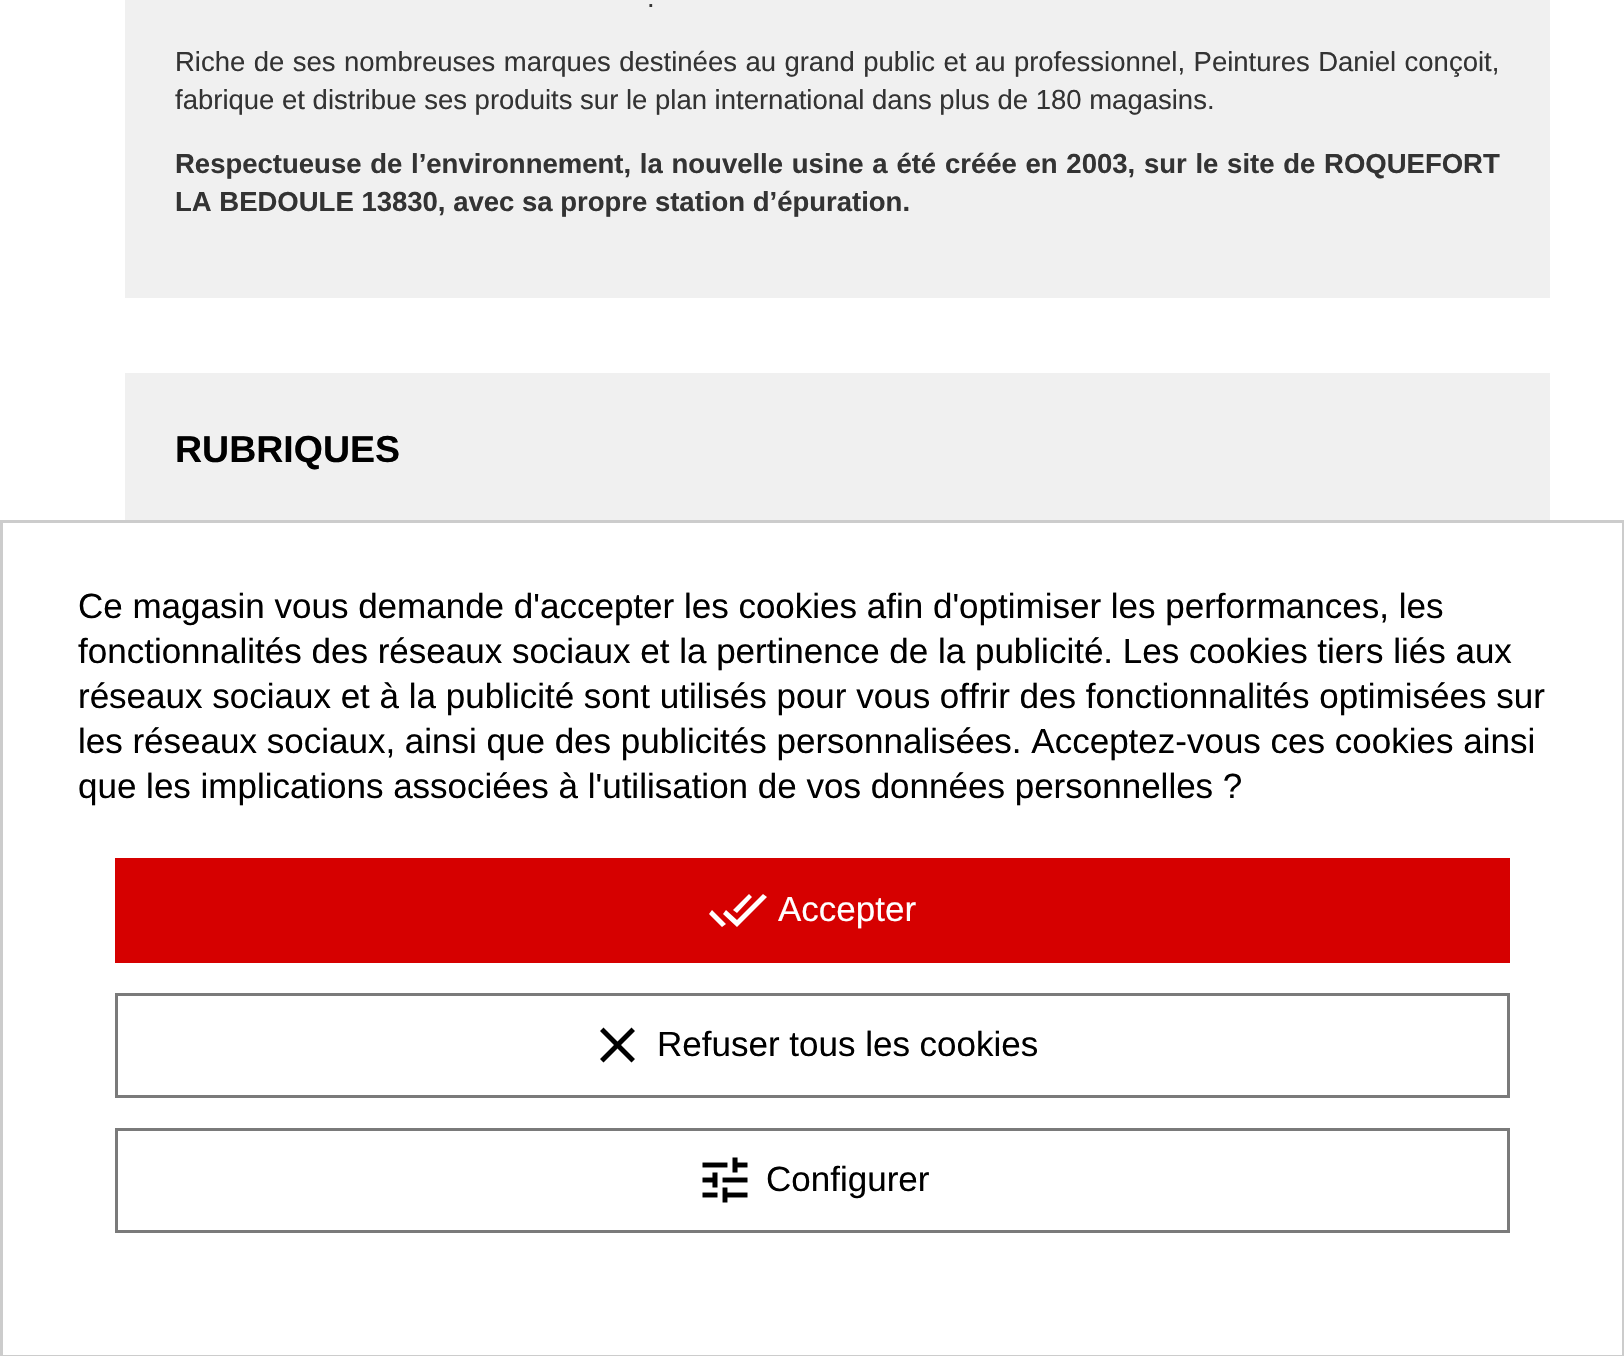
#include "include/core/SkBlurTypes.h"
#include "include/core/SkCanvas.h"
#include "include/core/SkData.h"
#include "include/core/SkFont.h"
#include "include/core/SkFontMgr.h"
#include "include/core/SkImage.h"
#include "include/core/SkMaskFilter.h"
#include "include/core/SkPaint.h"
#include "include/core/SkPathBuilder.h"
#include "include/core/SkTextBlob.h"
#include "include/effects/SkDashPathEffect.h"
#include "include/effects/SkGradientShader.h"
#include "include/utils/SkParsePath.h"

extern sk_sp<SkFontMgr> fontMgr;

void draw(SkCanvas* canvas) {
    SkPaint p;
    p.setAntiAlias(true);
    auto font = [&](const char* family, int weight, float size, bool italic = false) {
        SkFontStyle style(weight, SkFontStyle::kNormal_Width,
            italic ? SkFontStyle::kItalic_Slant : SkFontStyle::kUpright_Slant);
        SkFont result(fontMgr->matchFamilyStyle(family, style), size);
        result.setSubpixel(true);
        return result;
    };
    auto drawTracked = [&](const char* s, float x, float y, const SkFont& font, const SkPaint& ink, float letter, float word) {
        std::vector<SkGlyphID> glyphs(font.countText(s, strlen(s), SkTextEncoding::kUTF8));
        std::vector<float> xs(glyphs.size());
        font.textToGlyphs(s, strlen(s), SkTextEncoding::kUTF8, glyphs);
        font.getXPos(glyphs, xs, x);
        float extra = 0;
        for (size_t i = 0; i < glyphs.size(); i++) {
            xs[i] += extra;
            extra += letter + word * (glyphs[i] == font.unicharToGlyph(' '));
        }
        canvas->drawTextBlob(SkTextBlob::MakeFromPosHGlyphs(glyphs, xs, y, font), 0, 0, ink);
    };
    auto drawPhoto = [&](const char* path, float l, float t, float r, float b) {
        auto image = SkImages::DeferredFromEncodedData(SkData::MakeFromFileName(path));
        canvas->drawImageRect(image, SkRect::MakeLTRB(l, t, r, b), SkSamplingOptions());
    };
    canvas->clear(0xFFFFFFFF);
    p.setColor(0xFFF0F0F0);
    canvas->drawRect(SkRect::MakeLTRB(125, 0, 1550, 298), p);
    auto font1 = font("Liberation Sans", 400, 27.5f);
    p.setColor(0xFF333333);
    canvas->drawString(".", 647, 7, font1, p);
    drawTracked("Riche de ses nombreuses marques destinées au grand public et au professionnel, Peintures Daniel conçoit,", 175, 71, font1, p, 0, 0.8f);
    canvas->drawString("fabrique et distribue ses produits sur le plan international dans plus de 180 magasins.", 175, 109, font1, p);
    auto font2 = font("Liberation Sans", 700, 27.5f);
    drawTracked("Respectueuse de l’environnement, la nouvelle usine a été créée en 2003, sur le site de ROQUEFORT", 175, 173, font2, p, 0, 1.1f);
    canvas->drawString("LA BEDOULE 13830, avec sa propre station d’épuration.", 175, 211, font2, p);
    p.setColor(0xFFF0F0F0);
    canvas->drawRect(SkRect::MakeLTRB(125, 373, 1550, 520), p);
    auto font3 = font("Liberation Sans", 700, 37.5f);
    p.setColor(0xFF000000);
    canvas->drawString("RUBRIQUES", 175, 462, font3, p);
    p.setStyle(SkPaint::kStroke_Style);
    p.setStrokeWidth(3);
    p.setColor(0xFFCCCCCC);
    canvas->drawRect(SkRect::MakeLTRB(1.5f, 521.5f, 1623.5f, 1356.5f), p);
    auto font4 = font("Liberation Sans", 400, 35);
    p.setStyle(SkPaint::kFill_Style);
    p.setColor(0xFF000000);
    {
        const struct { const char* s; float x, y; } items[] = {
            {"Ce magasin vous demande d'accepter les cookies afin d'optimiser les performances, les", 78, 618},
            {"fonctionnalités des réseaux sociaux et la pertinence de la publicité. Les cookies tiers liés aux", 78, 663},
            {"réseaux sociaux et à la publicité sont utilisés pour vous offrir des fonctionnalités optimisées sur", 78, 708},
            {"les réseaux sociaux, ainsi que des publicités personnalisées. Acceptez-vous ces cookies ainsi", 78, 753},
            {"que les implications associées à l'utilisation de vos données personnelles ?", 78, 798},
        };
        for (auto [s, x, y] : items) {
            canvas->drawString(s, x, y, font4, p);
        }
    }
    p.setColor(0xFFD60000);
    canvas->drawRect(SkRect::MakeLTRB(115, 858, 1510, 963), p);
    p.setColor(0xFFFFFFFF);
    canvas->drawPath(SkPathBuilder().moveTo(709, 914).lineTo(712, 910).lineTo(726, 924).lineTo(722, 927).close().moveTo(763, 894).lineTo(767, 897).lineTo(737, 927).lineTo(723, 914).lineTo(726, 910).lineTo(737, 920).close().moveTo(752, 897).lineTo(737, 913).lineTo(733, 910).lineTo(749, 894).close().detach(), p);
    canvas->drawString("Accepter", 778, 921, font4, p);
    p.setStyle(SkPaint::kStroke_Style);
    p.setColor(0xFF7A7A7A);
    canvas->drawRect(SkRect::MakeLTRB(116.5f, 994.5f, 1508.5f, 1096.5f), p);
    p.setStyle(SkPaint::kFill_Style);
    p.setColor(0xFF000000);
    canvas->drawPath(SkPathBuilder().moveTo(635, 1031).lineTo(621, 1045).lineTo(635, 1059).lineTo(631.5f, 1062.5f).lineTo(617.5f, 1048.5f).lineTo(603.5f, 1062.5f).lineTo(600, 1059).lineTo(614, 1045).lineTo(600, 1031).lineTo(603.5f, 1027.5f).lineTo(617.5f, 1041.5f).lineTo(631.5f, 1027.5f).close().detach(), p);
    canvas->drawString("Refuser tous les cookies", 657, 1056, font4, p);
    p.setStyle(SkPaint::kStroke_Style);
    p.setColor(0xFF7A7A7A);
    canvas->drawRect(SkRect::MakeLTRB(116.5f, 1129.5f, 1508.5f, 1231.5f), p);
    drawPhoto("media/1.png", 702, 1157, 748, 1203);
    p.setStyle(SkPaint::kFill_Style);
    p.setColor(0xFF000000);
    canvas->drawString("Configurer", 766, 1191, font4, p);
}
